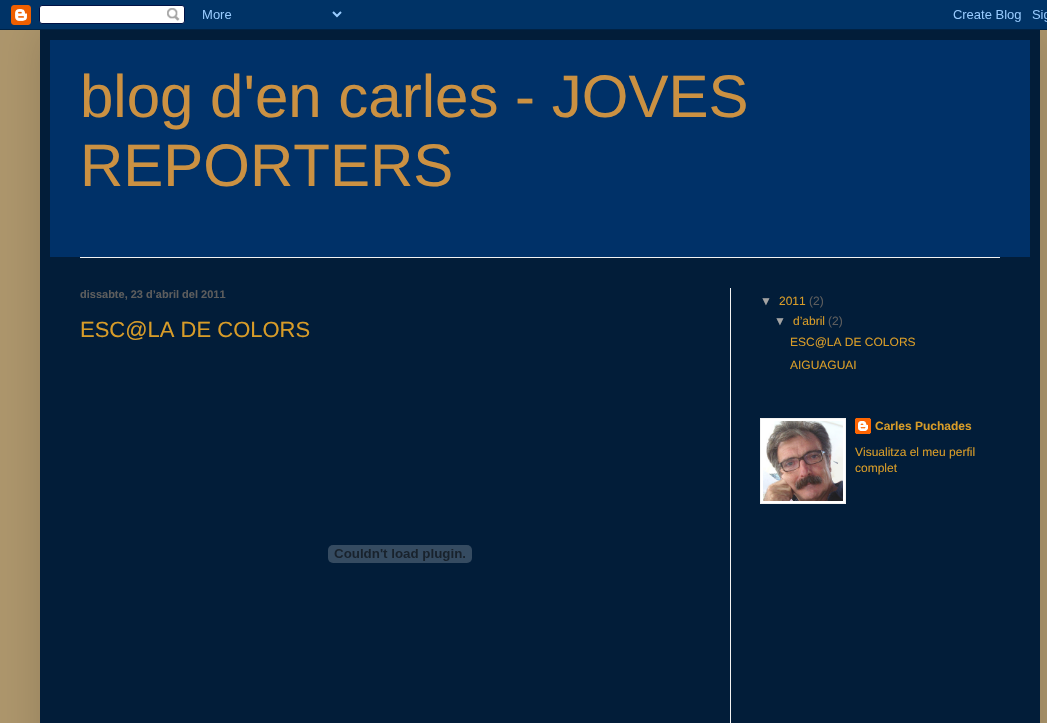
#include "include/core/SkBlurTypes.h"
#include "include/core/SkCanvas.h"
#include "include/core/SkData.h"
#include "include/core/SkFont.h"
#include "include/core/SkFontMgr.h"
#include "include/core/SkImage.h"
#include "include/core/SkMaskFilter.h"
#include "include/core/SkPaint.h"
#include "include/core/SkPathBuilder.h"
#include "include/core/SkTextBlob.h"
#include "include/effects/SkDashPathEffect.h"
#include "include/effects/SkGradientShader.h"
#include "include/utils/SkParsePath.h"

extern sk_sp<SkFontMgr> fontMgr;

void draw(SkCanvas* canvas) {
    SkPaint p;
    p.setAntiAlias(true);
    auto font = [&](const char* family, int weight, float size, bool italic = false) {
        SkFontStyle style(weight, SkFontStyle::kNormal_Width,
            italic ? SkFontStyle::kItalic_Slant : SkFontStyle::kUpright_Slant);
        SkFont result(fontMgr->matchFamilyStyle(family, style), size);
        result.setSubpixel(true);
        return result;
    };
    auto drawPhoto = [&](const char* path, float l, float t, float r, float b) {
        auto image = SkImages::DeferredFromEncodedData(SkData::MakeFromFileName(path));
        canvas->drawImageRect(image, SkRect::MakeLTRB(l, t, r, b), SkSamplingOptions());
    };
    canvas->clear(0xFFAD966C);
    p.setColor(0x26000000);
    p.setMaskFilter(SkMaskFilter::MakeBlur(kNormal_SkBlurStyle, 20));
    canvas->drawRect(SkRect::MakeLTRB(40, 30, 1040, 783), p);
    p.setMaskFilter(nullptr);
    drawPhoto("media/1.png", 0, 0, 1047, 30);
    p.setColor(0xFF021D39);
    canvas->drawRect(SkRect::MakeLTRB(40, 30, 1040, 723), p);
    p.setColor(0xFF003168);
    canvas->drawRect(SkRect::MakeLTRB(50, 40, 1030, 257), p);
    auto font1 = font("Liberation Sans", 400, 60);
    p.setColor(0xFFCB9142);
    canvas->drawString("blog d'en carles - JOVES", 80, 117, font1, p);
    canvas->drawString("REPORTERS", 80, 186, font1, p);
    p.setColor(0xFFF2F2F2);
    canvas->drawRect(SkRect::MakeLTRB(80, 257, 1000, 258), p);
    canvas->drawRect(SkRect::MakeLTRB(730, 288, 731, 723), p);
    auto font2 = font("Liberation Sans", 700, 11);
    p.setColor(0xFF5D5D5D);
    canvas->drawString("dissabte, 23 d’abril del 2011", 80, 298, font2, p);
    auto font3 = font("Liberation Sans", 400, 22);
    p.setColor(0xFFD89C28);
    canvas->drawString("ESC@LA DE COLORS", 80, 337, font3, p);
    drawPhoto("media/2.png", 328, 545, 472, 563);
    auto font4 = font("Liberation Sans", 400, 12);
    p.setColor(0xFFA3A3A3);
    canvas->drawString("▼", 760, 305, font4, p);
    p.setColor(0xFFD89C28);
    canvas->drawString("2011", 779, 305, font4, p);
    p.setColor(0xFF5D5D5D);
    canvas->drawString("(2)", 809, 305, font4, p);
    p.setColor(0xFFA3A3A3);
    canvas->drawString("▼", 774, 325, font4, p);
    p.setColor(0xFFD89C28);
    canvas->drawString("d’abril", 793, 325, font4, p);
    p.setColor(0xFF5D5D5D);
    canvas->drawString("(2)", 828, 325, font4, p);
    p.setColor(0xFFD89C28);
    canvas->drawString("ESC@LA DE COLORS", 790, 346, font4, p);
    canvas->drawString("AIGUAGUAI", 790, 369, font4, p);
    p.setColor(0xFFFFFFFF);
    canvas->drawRect(SkRect::MakeLTRB(760.5f, 418.5f, 845.5f, 503.5f), p);
    p.setStyle(SkPaint::kStroke_Style);
    p.setStrokeWidth(1);
    p.setColor(0xFFF2F2F2);
    canvas->drawRect(SkRect::MakeLTRB(760.5f, 418.5f, 845.5f, 503.5f), p);
    drawPhoto("media/3.png", 763, 421, 843, 501);
    drawPhoto("media/4.png", 855, 418, 871, 434);
    auto font5 = font("Liberation Sans", 700, 12);
    p.setStyle(SkPaint::kFill_Style);
    p.setColor(0xFFD89C28);
    canvas->drawString("Carles Puchades", 875, 430, font5, p);
    canvas->drawString("Visualitza el meu perfil", 855, 456, font4, p);
    canvas->drawString("complet", 855, 472, font4, p);
}
